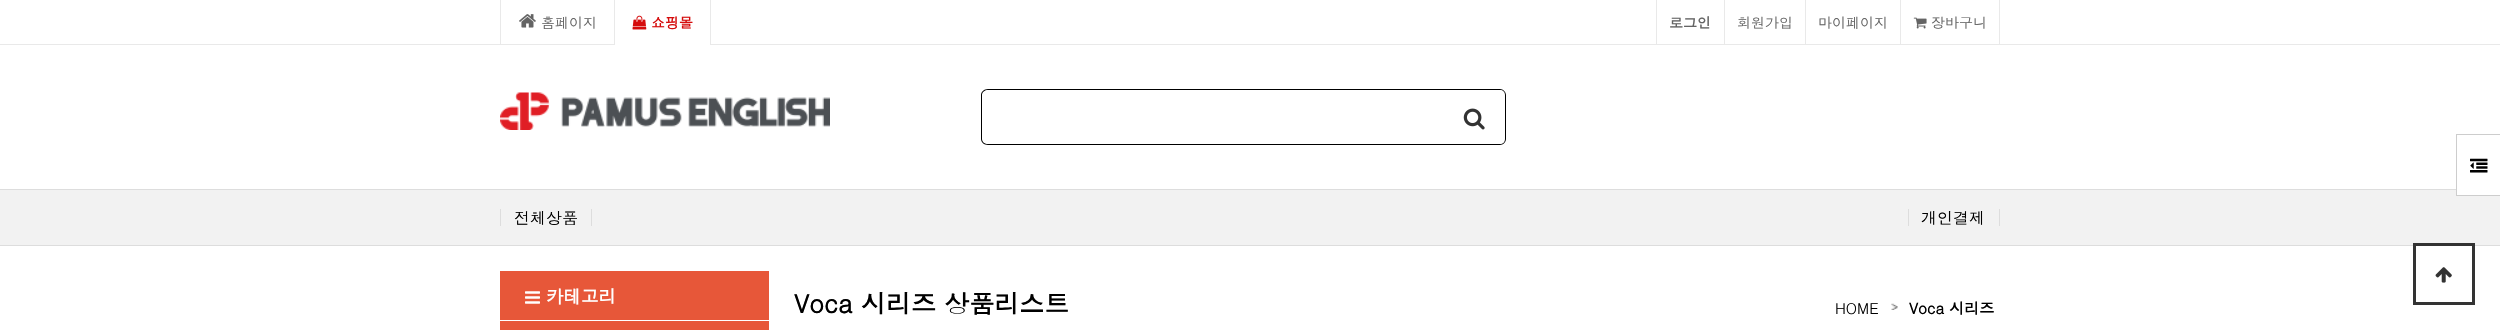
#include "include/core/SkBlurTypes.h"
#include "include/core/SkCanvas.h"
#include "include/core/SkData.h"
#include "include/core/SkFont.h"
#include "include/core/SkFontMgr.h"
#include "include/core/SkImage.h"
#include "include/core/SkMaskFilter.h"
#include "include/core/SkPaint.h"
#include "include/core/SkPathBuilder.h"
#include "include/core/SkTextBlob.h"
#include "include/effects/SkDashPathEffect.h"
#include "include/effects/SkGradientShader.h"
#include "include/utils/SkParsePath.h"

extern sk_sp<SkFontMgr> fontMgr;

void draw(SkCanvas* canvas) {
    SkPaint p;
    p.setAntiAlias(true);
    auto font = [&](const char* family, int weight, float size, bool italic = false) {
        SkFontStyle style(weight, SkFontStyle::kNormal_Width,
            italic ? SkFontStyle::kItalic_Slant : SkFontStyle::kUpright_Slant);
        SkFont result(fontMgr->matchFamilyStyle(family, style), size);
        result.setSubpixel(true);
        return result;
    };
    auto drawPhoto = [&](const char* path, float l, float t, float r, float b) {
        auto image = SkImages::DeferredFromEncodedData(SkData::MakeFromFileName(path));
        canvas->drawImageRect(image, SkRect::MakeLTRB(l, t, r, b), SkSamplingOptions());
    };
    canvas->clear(0xFFFFFFFF);
    p.setColor(0xFFE9E9E9);
    canvas->drawRect(SkRect::MakeLTRB(0, 44, 2500, 45), p);
    canvas->drawRect(SkRect::MakeLTRB(500, 0, 501, 44), p);
    drawPhoto("media/1.png", 519, 14, 536, 28);
    auto font1 = font("Dotum", 400, 14);
    p.setColor(0xFF646464);
    canvas->drawString("홈페이지", 541, 28, font1, p);
    {
        const struct { float l, t, r, b; SkColor color; } items[] = {
            {615, 44, 710, 45, 0xFFFFFFFF},
            {710, 0, 711, 45, 0xFFE9E9E9},
            {614, 0, 615, 45, 0xFFE9E9E9},
        };
        for (auto [l, t, r, b, color] : items) {
            p.setColor(color);
            canvas->drawRect(SkRect::MakeLTRB(l, t, r, b), p);
        }
    }
    drawPhoto("media/2.png", 632, 15, 647, 30);
    auto font2 = font("Dotum", 700, 14);
    p.setColor(0xFFD50C0C);
    canvas->drawString("쇼핑몰", 651, 28, font2, p);
    p.setColor(0xFFE9E9E9);
    canvas->drawRect(SkRect::MakeLTRB(1656, 0, 1657, 44), p);
    p.setColor(0xFF646464);
    canvas->drawString("로그인", 1669, 28, font2, p);
    p.setColor(0xFFE9E9E9);
    canvas->drawRect(SkRect::MakeLTRB(1724, 0, 1725, 44), p);
    p.setColor(0xFF646464);
    canvas->drawString("회원가입", 1737, 28, font1, p);
    p.setColor(0xFFE9E9E9);
    canvas->drawRect(SkRect::MakeLTRB(1805, 0, 1806, 44), p);
    p.setColor(0xFF646464);
    canvas->drawString("마이페이지", 1818, 28, font1, p);
    p.setColor(0xFFE9E9E9);
    canvas->drawRect(SkRect::MakeLTRB(1999, 0, 2000, 44), p);
    canvas->drawRect(SkRect::MakeLTRB(1900, 0, 1901, 44), p);
    drawPhoto("media/3.png", 1913, 17, 1927, 29);
    p.setColor(0xFF646464);
    canvas->drawString("장바구니", 1931, 28, font1, p);
    drawPhoto("media/4.png", 500, 92, 830, 130);
    p.setColor(0xFF000000);
    canvas->drawPath(SkPathBuilder(SkPathFillType::kEvenOdd).moveTo(988, 89).lineTo(1444, 89).lineTo(1444, 145).lineTo(988, 145).cubicTo(984, 145, 981, 142, 981, 139).lineTo(981, 95).cubicTo(981, 92, 984, 89, 988, 89).close().moveTo(988, 90).lineTo(1444, 90).lineTo(1444, 144).lineTo(988, 144).cubicTo(985, 144, 982, 142, 982, 139).lineTo(982, 95).cubicTo(982, 92, 985, 90, 988, 90).close().detach(), p);
    canvas->drawPath(SkPathBuilder(SkPathFillType::kEvenOdd).moveTo(1444, 89).lineTo(1500, 89).cubicTo(1503, 89, 1506, 92, 1506, 95).lineTo(1506, 139).cubicTo(1506, 142, 1503, 145, 1500, 145).lineTo(1444, 145).close().moveTo(1444, 90).lineTo(1500, 90).cubicTo(1503, 90, 1505, 92, 1505, 95).lineTo(1505, 139).cubicTo(1505, 142, 1503, 144, 1500, 144).lineTo(1444, 144).close().detach(), p);
    drawPhoto("media/5.png", 1463, 108, 1485, 130);
    {
        const struct { float l, t, r, b; SkColor color; } items[] = {
            {0, 190, 2500, 245, 0xFFF2F2F2},
            {0, 189, 2456, 190, 0xFFDDDDDD},
            {0, 245, 2500, 246, 0xFFDDDDDD},
            {591, 209, 592, 226, 0xFFDDDDDD},
            {500, 209, 501, 226, 0xFFDDDDDD},
        };
        for (auto [l, t, r, b, color] : items) {
            p.setColor(color);
            canvas->drawRect(SkRect::MakeLTRB(l, t, r, b), p);
        }
    }
    auto font3 = font("Dotum", 400, 16);
    p.setColor(0xFF000000);
    canvas->drawString("전체상품", 514, 224, font3, p);
    p.setColor(0xFFDDDDDD);
    canvas->drawRect(SkRect::MakeLTRB(1999, 209, 2000, 226), p);
    canvas->drawRect(SkRect::MakeLTRB(1908, 209, 1909, 226), p);
    p.setColor(0xFF000000);
    canvas->drawString("개인결제", 1921, 224, font3, p);
    {
        const struct { float l, t, r, b; SkColor color; } items[] = {
            {2457, 190, 2500, 195, 0xFFFFFFFF},
            {2456, 134, 2500, 135, 0xFFCDCDCD},
            {2456, 195, 2500, 196, 0xFFCDCDCD},
            {2456, 134, 2457, 196, 0xFFCDCDCD},
        };
        for (auto [l, t, r, b, color] : items) {
            p.setColor(color);
            canvas->drawRect(SkRect::MakeLTRB(l, t, r, b), p);
        }
    }
    drawPhoto("media/6.png", 2470, 158, 2488, 173);
    p.setColor(0xFFE75739);
    canvas->drawRect(SkRect::MakeLTRB(500, 271, 769, 330), p);
    p.setColor(0xFFFFFFFF);
    canvas->drawRect(SkRect::MakeLTRB(500, 320, 769, 321), p);
    drawPhoto("media/7.png", 525, 291, 540, 304);
    auto font4 = font("Dotum", 700, 17.5f);
    canvas->drawString("카테고리", 546, 303, font4, p);
    auto font5 = font("Dotum", 700, 25);
    p.setColor(0xFF000000);
    canvas->drawString("Voca 시리즈 상품리스트", 794, 313, font5, p);
    drawPhoto("media/8.png", 1891, 303, 1898, 310);
    auto font6 = font("Dotum", 400, 15);
    canvas->drawString("HOME", 1835, 314, font6, p);
    auto font7 = font("Dotum", 700, 15);
    canvas->drawString("Voca 시리즈", 1909, 314, font7, p);
    p.setStyle(SkPaint::kStroke_Style);
    p.setStrokeWidth(3);
    p.setColor(0xFF333333);
    canvas->drawRect(SkRect::MakeLTRB(2414.5f, 244.5f, 2473.5f, 303.5f), p);
    drawPhoto("media/9.png", 2435, 267, 2452, 283);
}
